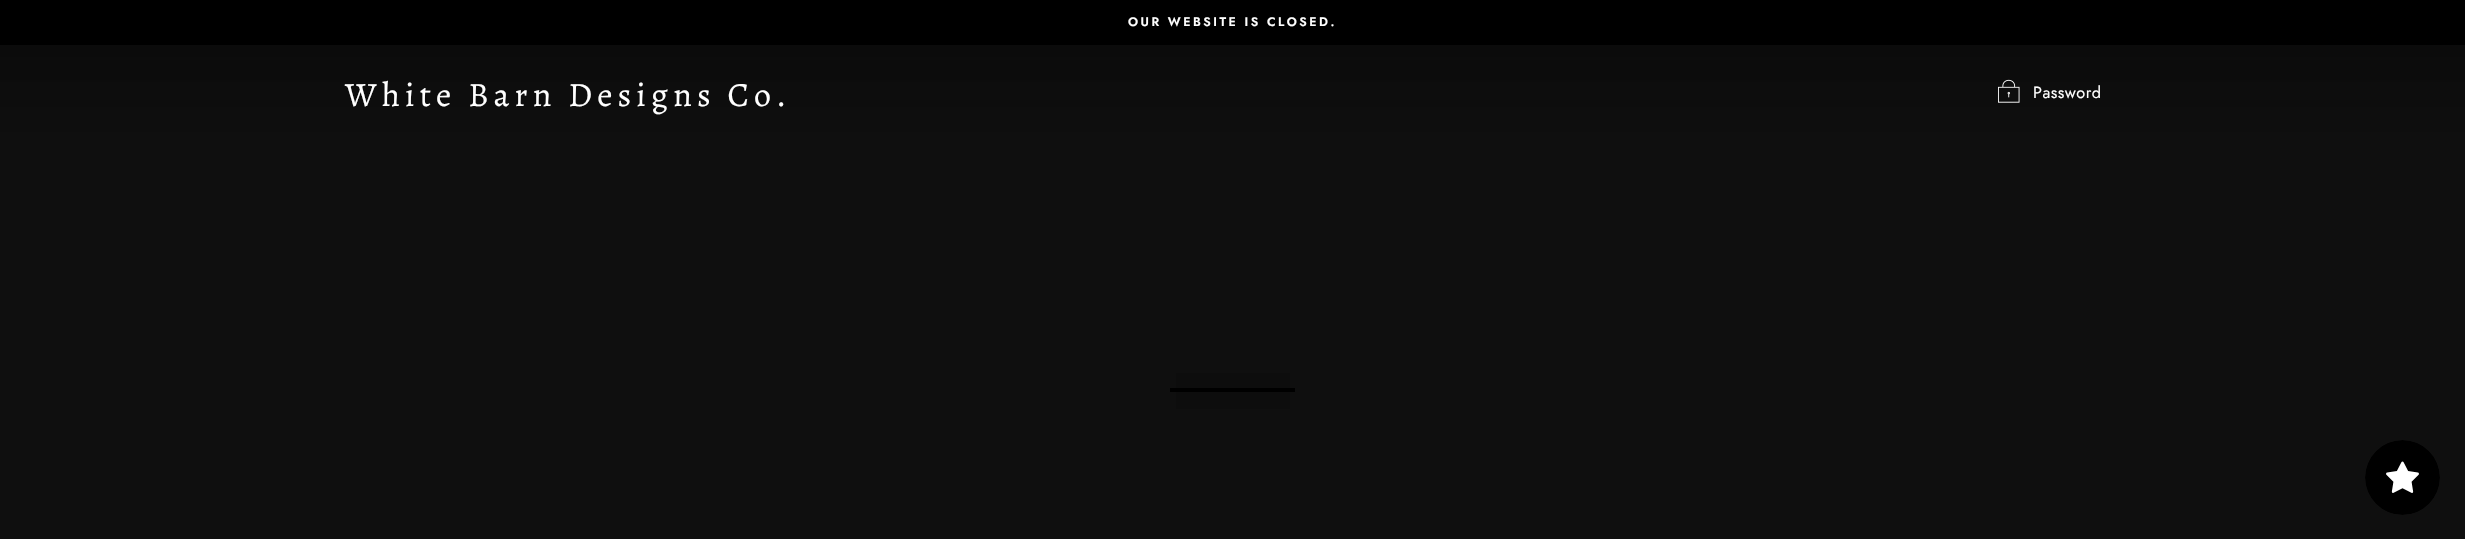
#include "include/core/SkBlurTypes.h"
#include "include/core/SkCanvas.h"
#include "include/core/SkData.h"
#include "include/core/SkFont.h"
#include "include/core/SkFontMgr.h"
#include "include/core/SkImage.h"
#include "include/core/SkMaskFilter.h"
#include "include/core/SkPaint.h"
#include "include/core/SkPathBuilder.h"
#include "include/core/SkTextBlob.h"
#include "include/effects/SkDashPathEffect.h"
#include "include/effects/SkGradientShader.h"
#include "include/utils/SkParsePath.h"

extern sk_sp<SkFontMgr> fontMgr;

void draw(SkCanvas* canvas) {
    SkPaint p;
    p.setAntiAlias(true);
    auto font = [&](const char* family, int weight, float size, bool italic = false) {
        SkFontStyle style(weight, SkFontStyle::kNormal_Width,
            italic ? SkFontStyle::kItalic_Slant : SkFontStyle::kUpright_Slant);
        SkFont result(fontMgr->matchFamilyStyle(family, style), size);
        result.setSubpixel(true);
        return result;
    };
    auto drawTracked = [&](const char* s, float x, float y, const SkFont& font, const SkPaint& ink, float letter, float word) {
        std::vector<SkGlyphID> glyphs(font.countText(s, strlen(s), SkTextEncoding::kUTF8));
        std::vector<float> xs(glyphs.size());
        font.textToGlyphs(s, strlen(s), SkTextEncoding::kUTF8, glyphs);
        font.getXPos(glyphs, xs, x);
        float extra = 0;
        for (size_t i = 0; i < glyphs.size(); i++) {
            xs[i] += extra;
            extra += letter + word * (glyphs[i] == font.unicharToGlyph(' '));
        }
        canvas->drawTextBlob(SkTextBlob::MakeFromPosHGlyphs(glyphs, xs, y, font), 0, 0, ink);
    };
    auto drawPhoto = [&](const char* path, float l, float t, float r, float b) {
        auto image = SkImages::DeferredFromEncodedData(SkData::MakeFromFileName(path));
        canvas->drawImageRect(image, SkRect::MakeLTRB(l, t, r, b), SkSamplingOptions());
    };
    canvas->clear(0xFF000000);
    auto font1 = font("Jost", 600, 12.4f);
    p.setColor(0xFFFFFFFF);
    drawTracked("OUR WEBSITE IS CLOSED.", 1128, 26, font1, p, 2.5f, 0);
    {
        const SkColor colors[] = {0xFF0B0B0B, 0xFF0F0F0F};
        const float stops[] = {0, 1};
        const SkPoint ends[] = {{1233, 45}, {1233, 144}};
        p.setShader(SkGradientShader::MakeLinear(ends, colors, stops, 2, SkTileMode::kClamp));
        p.setAlpha(255);
    }
    canvas->drawRect(SkRect::MakeLTRB(0, 45, 2465, 144), p);
    auto font2 = font("Alegreya", 400, 34);
    p.setShader(nullptr);
    p.setColor(0xFFFFFFFF);
    drawTracked("White Barn Designs Co.", 345, 106, font2, p, 5.1f, 0);
    drawPhoto("media/1.png", 1998, 79, 2020, 103);
    auto font3 = font("Jost", 400, 16.25f);
    drawTracked("Password", 2033, 98, font3, p, 0.5f, 0);
    p.setColor(0xFF0F0F0F);
    canvas->drawRect(SkRect::MakeLTRB(0, 144, 2465, 539), p);
    p.setColor(0xFF000000);
    canvas->drawRect(SkRect::MakeLTRB(1170, 388, 1295, 392), p);
    {
        const SkColor colors[] = {0x33000000, 0x00000000};
        const float stops[] = {0, 0.6f};
        SkMatrix m = SkMatrix::Translate(1233, 391).preScale(751, 230);
        p.setShader(SkGradientShader::MakeRadial({0, 0}, 1, colors, stops, 2, SkTileMode::kClamp, 0, &m));
        p.setAlpha(255);
    }
    canvas->drawRect(SkRect::MakeLTRB(1176, 373, 1290, 409), p);
    drawPhoto("media/2.png", 2365, 440, 2440, 515);
}
